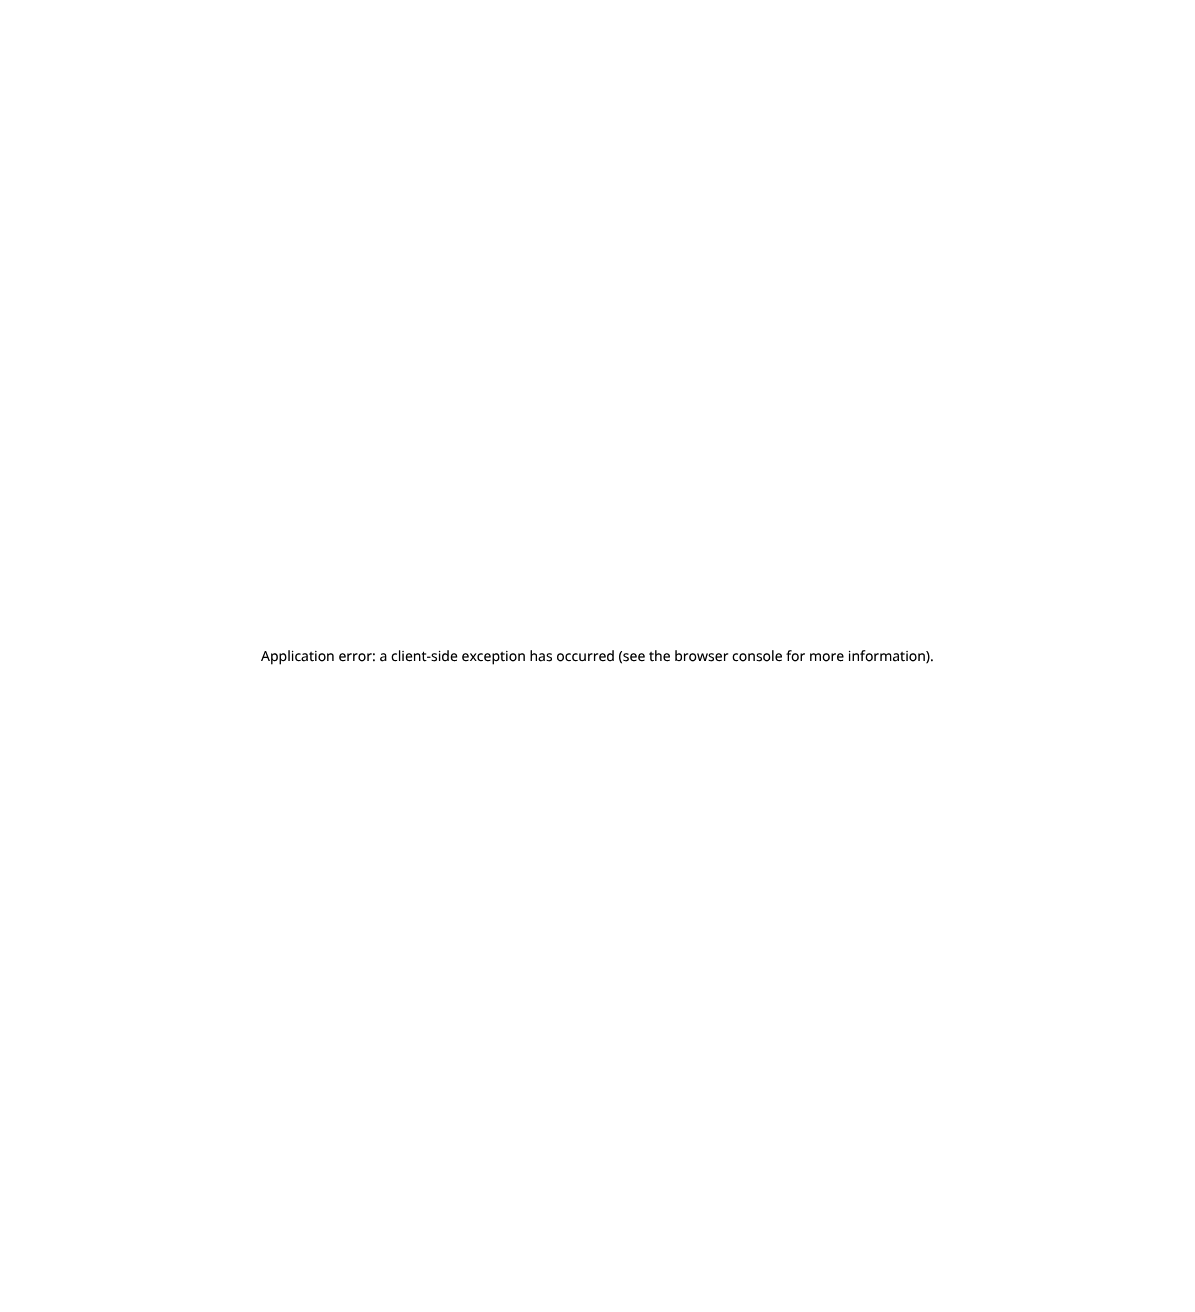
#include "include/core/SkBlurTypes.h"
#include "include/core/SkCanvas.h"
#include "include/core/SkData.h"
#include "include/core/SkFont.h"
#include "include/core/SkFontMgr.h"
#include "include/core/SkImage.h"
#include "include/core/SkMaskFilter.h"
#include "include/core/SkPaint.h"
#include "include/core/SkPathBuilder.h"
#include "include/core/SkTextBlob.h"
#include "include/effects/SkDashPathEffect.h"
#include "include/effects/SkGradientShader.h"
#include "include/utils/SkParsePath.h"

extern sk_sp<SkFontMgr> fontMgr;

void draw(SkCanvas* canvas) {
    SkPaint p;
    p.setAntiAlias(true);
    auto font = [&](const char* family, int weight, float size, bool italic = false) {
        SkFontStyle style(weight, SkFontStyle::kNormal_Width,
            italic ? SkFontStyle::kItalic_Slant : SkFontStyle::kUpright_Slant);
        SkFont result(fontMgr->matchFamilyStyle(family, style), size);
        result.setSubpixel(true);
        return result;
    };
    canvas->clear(0xFFFFFFFF);
    auto font1 = font("Noto Sans", 400, 14);
    p.setColor(0xFF000000);
    canvas->drawString("Application error: a client-side exception has occurred (see the browser console for more information).", 261, 661, font1, p);
}
